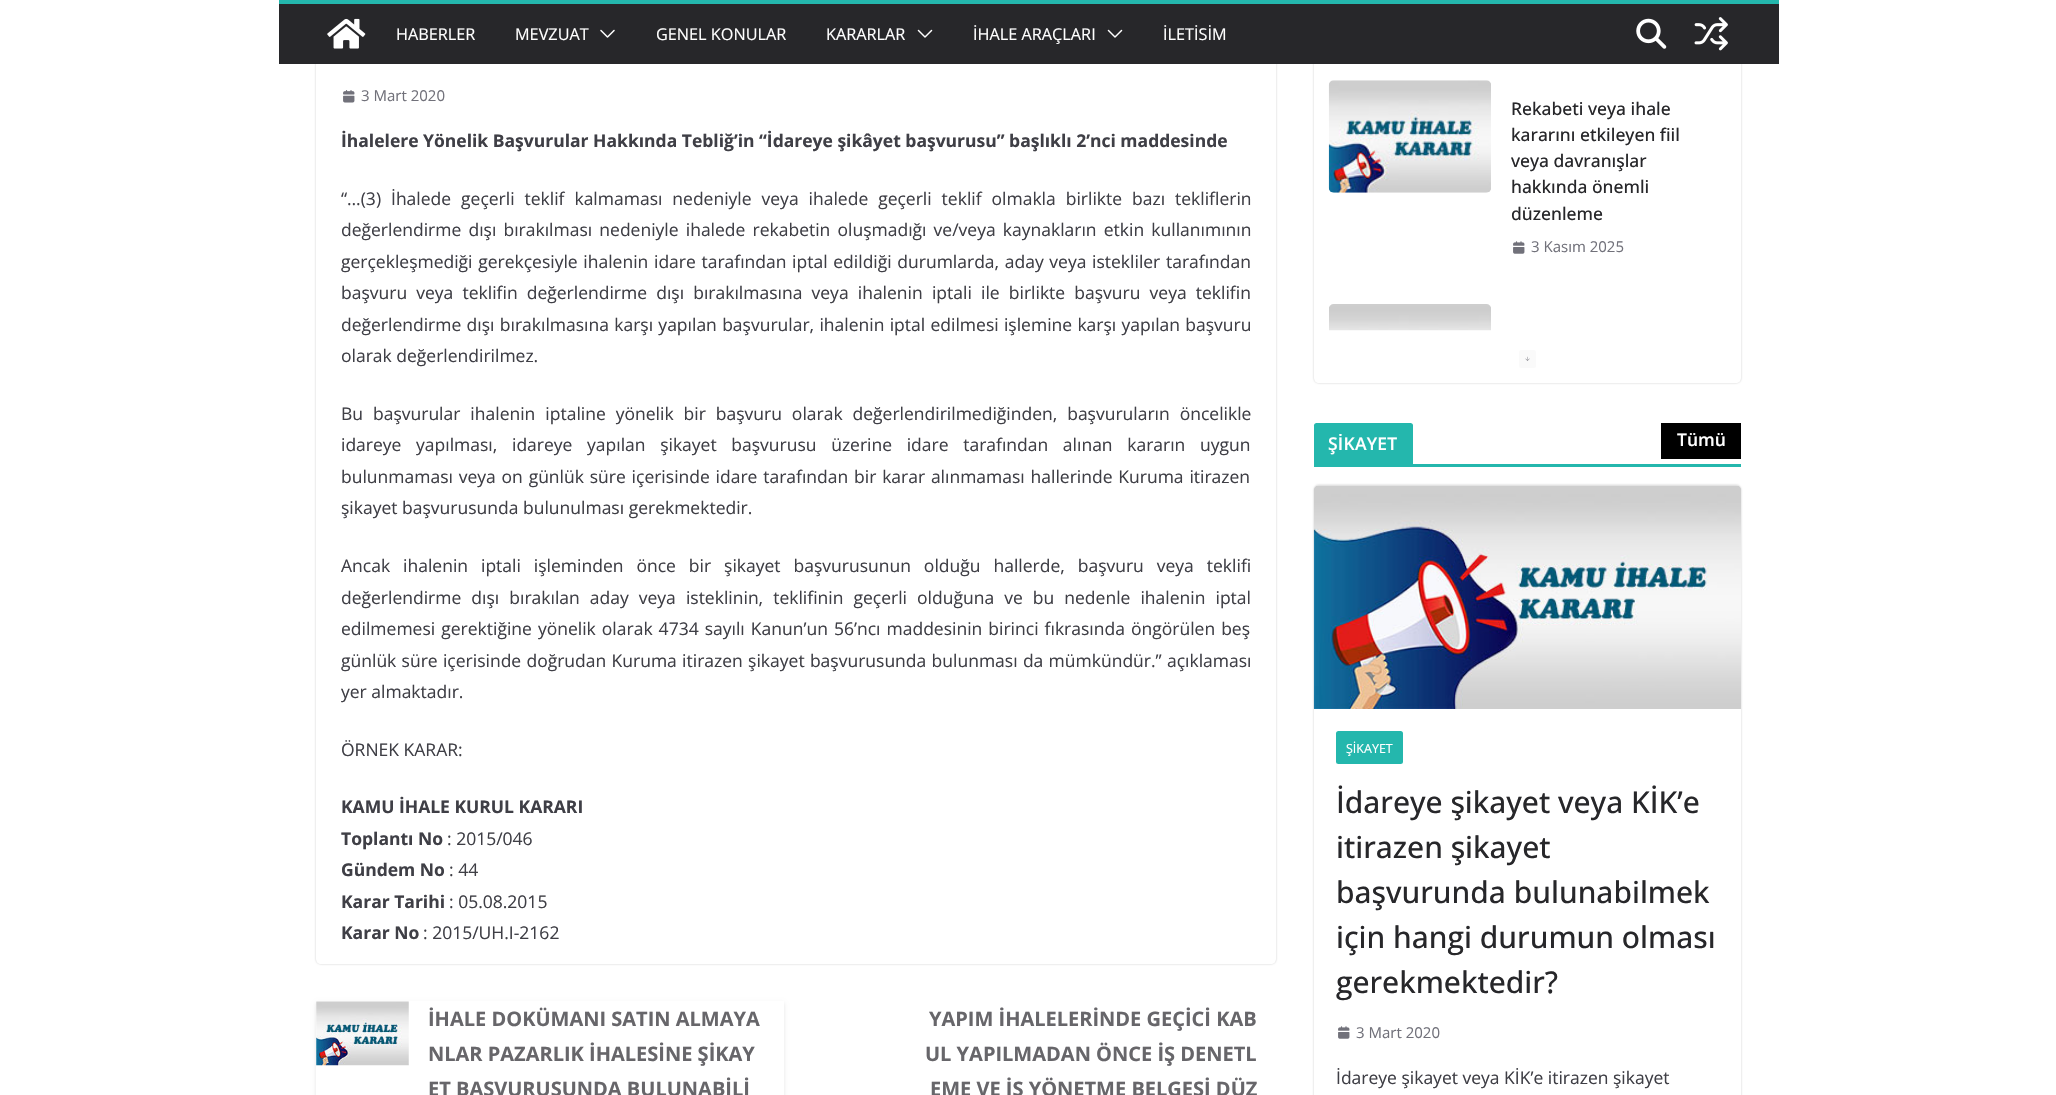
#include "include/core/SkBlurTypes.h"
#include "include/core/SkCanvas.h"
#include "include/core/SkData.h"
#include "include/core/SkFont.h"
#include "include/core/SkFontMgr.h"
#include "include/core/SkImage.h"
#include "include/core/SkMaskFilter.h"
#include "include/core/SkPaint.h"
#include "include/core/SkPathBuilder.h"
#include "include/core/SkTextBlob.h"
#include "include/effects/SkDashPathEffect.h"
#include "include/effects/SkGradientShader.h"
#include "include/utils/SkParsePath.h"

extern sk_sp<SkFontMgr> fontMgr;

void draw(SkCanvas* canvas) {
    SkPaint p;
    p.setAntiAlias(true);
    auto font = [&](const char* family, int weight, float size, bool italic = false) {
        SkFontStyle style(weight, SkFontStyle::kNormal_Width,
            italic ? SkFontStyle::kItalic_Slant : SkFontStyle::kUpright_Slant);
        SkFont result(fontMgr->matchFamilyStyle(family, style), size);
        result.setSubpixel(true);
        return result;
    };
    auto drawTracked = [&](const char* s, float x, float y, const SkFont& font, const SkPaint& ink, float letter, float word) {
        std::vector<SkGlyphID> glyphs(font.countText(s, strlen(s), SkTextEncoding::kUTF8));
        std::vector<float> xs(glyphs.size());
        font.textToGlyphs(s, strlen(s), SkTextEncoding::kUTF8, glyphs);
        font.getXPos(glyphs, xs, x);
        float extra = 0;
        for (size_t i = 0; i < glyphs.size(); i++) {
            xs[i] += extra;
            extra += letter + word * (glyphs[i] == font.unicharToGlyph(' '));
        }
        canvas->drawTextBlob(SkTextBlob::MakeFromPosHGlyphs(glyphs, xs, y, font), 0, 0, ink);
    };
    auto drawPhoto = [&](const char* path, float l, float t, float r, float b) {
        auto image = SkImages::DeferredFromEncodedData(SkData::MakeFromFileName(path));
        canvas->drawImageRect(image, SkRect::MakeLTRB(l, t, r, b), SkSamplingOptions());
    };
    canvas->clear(0xFFFFFFFF);
    canvas->save();
    canvas->clipPath(SkPathBuilder(SkPathFillType::kEvenOdd).moveTo(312, 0).lineTo(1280, 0).lineTo(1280, 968).lineTo(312, 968).close().moveTo(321, -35).lineTo(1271, -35).cubicTo(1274, -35, 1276, -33, 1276, -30).lineTo(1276, 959).cubicTo(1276, 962, 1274, 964, 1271, 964).lineTo(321, 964).cubicTo(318, 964, 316, 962, 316, 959).lineTo(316, -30).cubicTo(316, -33, 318, -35, 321, -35).close().detach(), true);
    p.setColor(0x3D000000);
    p.setMaskFilter(SkMaskFilter::MakeBlur(kNormal_SkBlurStyle, 1));
    canvas->drawRoundRect(SkRect::MakeLTRB(316, -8, 1276, 964), 5, 5, p);
    p.setMaskFilter(nullptr);
    canvas->restore();
    canvas->save();
    canvas->clipPath(SkPathBuilder(SkPathFillType::kEvenOdd).moveTo(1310, 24).lineTo(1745, 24).lineTo(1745, 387).lineTo(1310, 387).close().moveTo(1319, 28).lineTo(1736, 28).cubicTo(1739, 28, 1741, 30, 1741, 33).lineTo(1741, 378).cubicTo(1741, 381, 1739, 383, 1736, 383).lineTo(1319, 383).cubicTo(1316, 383, 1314, 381, 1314, 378).lineTo(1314, 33).cubicTo(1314, 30, 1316, 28, 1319, 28).close().detach(), true);
    p.setMaskFilter(SkMaskFilter::MakeBlur(kNormal_SkBlurStyle, 1));
    canvas->drawRoundRect(SkRect::MakeLTRB(1314, 28, 1741, 383), 5, 5, p);
    p.setMaskFilter(nullptr);
    canvas->restore();
    p.setColor(0xFF27272A);
    canvas->drawRect(SkRect::MakeLTRB(279, 4, 1779, 64), p);
    p.setColor(0xFF24B7AD);
    canvas->drawRect(SkRect::MakeLTRB(279, 0, 1779, 4), p);
    drawPhoto("media/1.png", 327, 18, 366, 49);
    auto font1 = font("Open Sans", 400, 16.25f);
    p.setColor(0xFFFFFFFF);
    canvas->drawString("HABERLER", 396, 40, font1, p);
    canvas->drawString("MEVZUAT", 515, 40, font1, p);
    drawPhoto("media/2.png", 600, 29, 615, 38);
    canvas->drawString("GENEL KONULAR", 656, 40, font1, p);
    canvas->drawString("KARARLAR", 826, 40, font1, p);
    drawPhoto("media/3.png", 917, 29, 933, 38);
    canvas->drawString("İHALE ARAÇLARI", 973, 40, font1, p);
    drawPhoto("media/3.png", 1107, 29, 1123, 38);
    canvas->drawString("İLETİSİM", 1163, 40, font1, p);
    drawPhoto("media/4.png", 1636, 18, 1667, 49);
    drawPhoto("media/5.png", 1694, 17, 1728, 51);
    drawPhoto("media/6.png", 343, 90, 355, 103);
    auto font2 = font("Open Sans", 400, 15);
    p.setColor(0xFF71717A);
    canvas->drawString("3 Mart 2020", 361, 101, font2, p);
    auto font3 = font("Open Sans", 700, 17.5f);
    p.setColor(0xFF3F3F46);
    canvas->drawString("İhalelere Yönelik Başvurular Hakkında Tebliğ’in “İdareye şikâyet başvurusu” başlıklı 2’nci maddesinde", 341, 147, font3, p);
    auto font4 = font("Open Sans", 400, 17.5f);
    drawTracked("“…(3) İhalede geçerli teklif kalmaması nedeniyle veya ihalede geçerli teklif olmakla birlikte bazı tekliflerin", 341, 205, font4, p, 0, 5.4f);
    drawTracked("değerlendirme dışı bırakılması nedeniyle ihalede rekabetin oluşmadığı ve/veya kaynakların etkin kullanımının", 341, 236, font4, p, 0, 2.6f);
    drawTracked("gerçekleşmediği gerekçesiyle ihalenin idare tarafından iptal edildiği durumlarda, aday veya istekliler tarafından", 341, 268, font4, p, 0, 1.1f);
    drawTracked("başvuru veya teklifin değerlendirme dışı bırakılmasına veya ihalenin iptali ile birlikte başvuru veya teklifin", 341, 299, font4, p, 0, 4.6f);
    drawTracked("değerlendirme dışı bırakılmasına karşı yapılan başvurular, ihalenin iptal edilmesi işlemine karşı yapılan başvuru", 341, 331, font4, p, 0, 0.75f);
    canvas->drawString("olarak değerlendirilmez.", 341, 362, font4, p);
    drawTracked("Bu başvurular ihalenin iptaline yönelik bir başvuru olarak değerlendirilmediğinden, başvuruların öncelikle", 341, 420, font4, p, 0, 5.4f);
    drawTracked("idareye yapılması, idareye yapılan şikayet başvurusu üzerine idare tarafından alınan kararın uygun", 341, 451, font4, p, 0, 10.1f);
    drawTracked("bulunmaması veya on günlük süre içerisinde idare tarafından bir karar alınmaması hallerinde Kuruma itirazen", 341, 483, font4, p, 0, 1.25f);
    canvas->drawString("şikayet başvurusunda bulunulması gerekmektedir.", 341, 514, font4, p);
    drawTracked("Ancak ihalenin iptali işleminden önce bir şikayet başvurusunun olduğu hallerde, başvuru veya teklifi", 341, 572, font4, p, 0, 8.4f);
    drawTracked("değerlendirme dışı bırakılan aday veya isteklinin, teklifinin geçerli olduğuna ve bu nedenle ihalenin iptal", 341, 604, font4, p, 0, 5.5f);
    drawTracked("edilmemesi gerektiğine yönelik olarak 4734 sayılı Kanun’un 56’ncı maddesinin birinci fıkrasında öngörülen beş", 341, 635, font4, p, 0, 1.5f);
    drawTracked("günlük süre içerisinde doğrudan Kuruma itirazen şikayet başvurusunda bulunması da mümkündür.” açıklaması", 341, 667, font4, p, 0, 0.75f);
    canvas->drawString("yer almaktadır.", 341, 698, font4, p);
    canvas->drawString("ÖRNEK KARAR:", 341, 756, font4, p);
    canvas->drawString("KAMU İHALE KURUL KARARI", 341, 813, font3, p);
    canvas->drawString("Toplantı No", 341, 845, font3, p);
    canvas->drawString(": 2015/046", 447, 845, font4, p);
    canvas->drawString("Gündem No", 341, 876, font3, p);
    canvas->drawString(": 44", 449, 876, font4, p);
    canvas->drawString("Karar Tarihi", 341, 908, font3, p);
    canvas->drawString(": 05.08.2015", 449, 908, font4, p);
    canvas->drawString("Karar No", 341, 939, font3, p);
    canvas->drawString(": 2015/UH.I-2162", 423, 939, font4, p);
    canvas->save();
    canvas->clipPath(SkPathBuilder(SkPathFillType::kEvenOdd).moveTo(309, 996).lineTo(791, 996).lineTo(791, 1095).lineTo(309, 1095).close().moveTo(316, 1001).lineTo(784, 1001).lineTo(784, 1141).lineTo(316, 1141).close().detach(), true);
    p.setColor(0x1A000000);
    p.setMaskFilter(SkMaskFilter::MakeBlur(kNormal_SkBlurStyle, 2));
    canvas->drawRect(SkRect::MakeLTRB(316, 1003, 784, 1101), p);
    p.setMaskFilter(nullptr);
    canvas->restore();
    drawPhoto("media/7.png", 316, 1001, 409, 1066);
    auto font5 = font("Open Sans", 700, 20);
    p.setColor(0xFF67666A);
    {
        const struct { const char* s; float x, y; } items[] = {
            {"İHALE DOKÜMANI SATIN ALMAYA", 428, 1026},
            {"NLAR PAZARLIK İHALESİNE ŞİKAY", 428, 1061},
            {"ET BAŞVURUSUNDA BULUNABİLİ", 428, 1096},
            {"YAPIM İHALELERİNDE GEÇİCİ KAB", 929, 1026},
            {"UL YAPILMADAN ÖNCE İŞ DENETL", 925, 1061},
            {"EME VE İŞ YÖNETME BELGESİ DÜZ", 930, 1096},
        };
        for (auto [s, x, y] : items) {
            canvas->drawString(s, x, y, font5, p);
        }
    }
    drawPhoto("media/8.png", 1328, 80, 1491, 193);
    auto font6 = font("Open Sans", 500, 17.5f);
    p.setColor(0xFF27272A);
    {
        const struct { const char* s; float x, y; } items[] = {
            {"Rekabeti veya ihale", 1511, 115},
            {"kararını etkileyen fiil", 1511, 141},
            {"veya davranışlar", 1511, 167},
            {"hakkında önemli", 1511, 193},
            {"düzenleme", 1511, 220},
        };
        for (auto [s, x, y] : items) {
            canvas->drawString(s, x, y, font6, p);
        }
    }
    drawPhoto("media/9.png", 1513, 241, 1525, 254);
    p.setColor(0xFF71717A);
    canvas->drawString("3 Kasım 2025", 1531, 252, font2, p);
    drawPhoto("media/10.png", 1329, 304, 1491, 331);
    p.setColor(0xFFFAFAFA);
    canvas->drawRoundRect(SkRect::MakeLTRB(1519, 350, 1536, 368), 2.5f, 2.5f, p);
    drawPhoto("media/11.png", 1525, 356, 1530, 361);
    p.setColor(0xFF24B7AD);
    canvas->drawRect(SkRect::MakeLTRB(1314, 464, 1741, 467), p);
    canvas->drawPath(SkPathBuilder().moveTo(1316.5f, 423).lineTo(1410.5f, 423).cubicTo(1412, 423, 1413, 424, 1413, 425.5f).lineTo(1413, 464).lineTo(1314, 464).lineTo(1314, 425.5f).cubicTo(1314, 424, 1315, 423, 1316.5f, 423).close().detach(), p);
    auto font7 = font("Open Sans", 600, 17.5f);
    p.setColor(0xFFFFFFFF);
    drawTracked("ŞİKAYET", 1328, 450, font7, p, 0.25f, 0);
    p.setColor(0xFF000000);
    canvas->drawRect(SkRect::MakeLTRB(1661, 423, 1741, 459), p);
    p.setColor(0xFFFFFFFF);
    canvas->drawString("Tümü", 1677, 446, font7, p);
    canvas->save();
    canvas->clipPath(SkPathBuilder(SkPathFillType::kEvenOdd).moveTo(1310, 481).lineTo(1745, 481).lineTo(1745, 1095).lineTo(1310, 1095).close().moveTo(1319, 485).lineTo(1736, 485).cubicTo(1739, 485, 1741, 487, 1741, 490).lineTo(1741, 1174).cubicTo(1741, 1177, 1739, 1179, 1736, 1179).lineTo(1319, 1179).cubicTo(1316, 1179, 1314, 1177, 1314, 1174).lineTo(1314, 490).cubicTo(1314, 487, 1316, 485, 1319, 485).close().detach(), true);
    p.setColor(0x3D000000);
    p.setMaskFilter(SkMaskFilter::MakeBlur(kNormal_SkBlurStyle, 1));
    canvas->drawRoundRect(SkRect::MakeLTRB(1314, 485, 1741, 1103), 5, 5, p);
    p.setMaskFilter(nullptr);
    canvas->restore();
    drawPhoto("media/12.png", 1313, 485, 1741, 709);
    p.setColor(0xFF24B7AD);
    canvas->drawRoundRect(SkRect::MakeLTRB(1336, 731, 1403, 764), 2.5f, 2.5f, p);
    auto font8 = font("Open Sans", 400, 12.5f);
    p.setColor(0xFFFFFFFF);
    canvas->drawString("ŞİKAYET", 1346, 753, font8, p);
    auto font9 = font("Open Sans", 500, 30);
    p.setColor(0xFF27272A);
    {
        const struct { const char* s; float x, y; } items[] = {
            {"İdareye şikayet veya KİK’e", 1336, 813},
            {"itirazen şikayet", 1336, 858},
            {"başvurunda bulunabilmek", 1336, 903},
            {"için hangi durumun olması", 1336, 948},
            {"gerekmektedir?", 1336, 993},
        };
        for (auto [s, x, y] : items) {
            canvas->drawString(s, x, y, font9, p);
        }
    }
    drawPhoto("media/9.png", 1338, 1026, 1350, 1039);
    p.setColor(0xFF71717A);
    canvas->drawString("3 Mart 2020", 1356, 1038, font2, p);
    p.setColor(0xFF3F3F46);
    canvas->drawString("İdareye şikayet veya KİK’e itirazen şikayet", 1336, 1084, font4, p);
}
